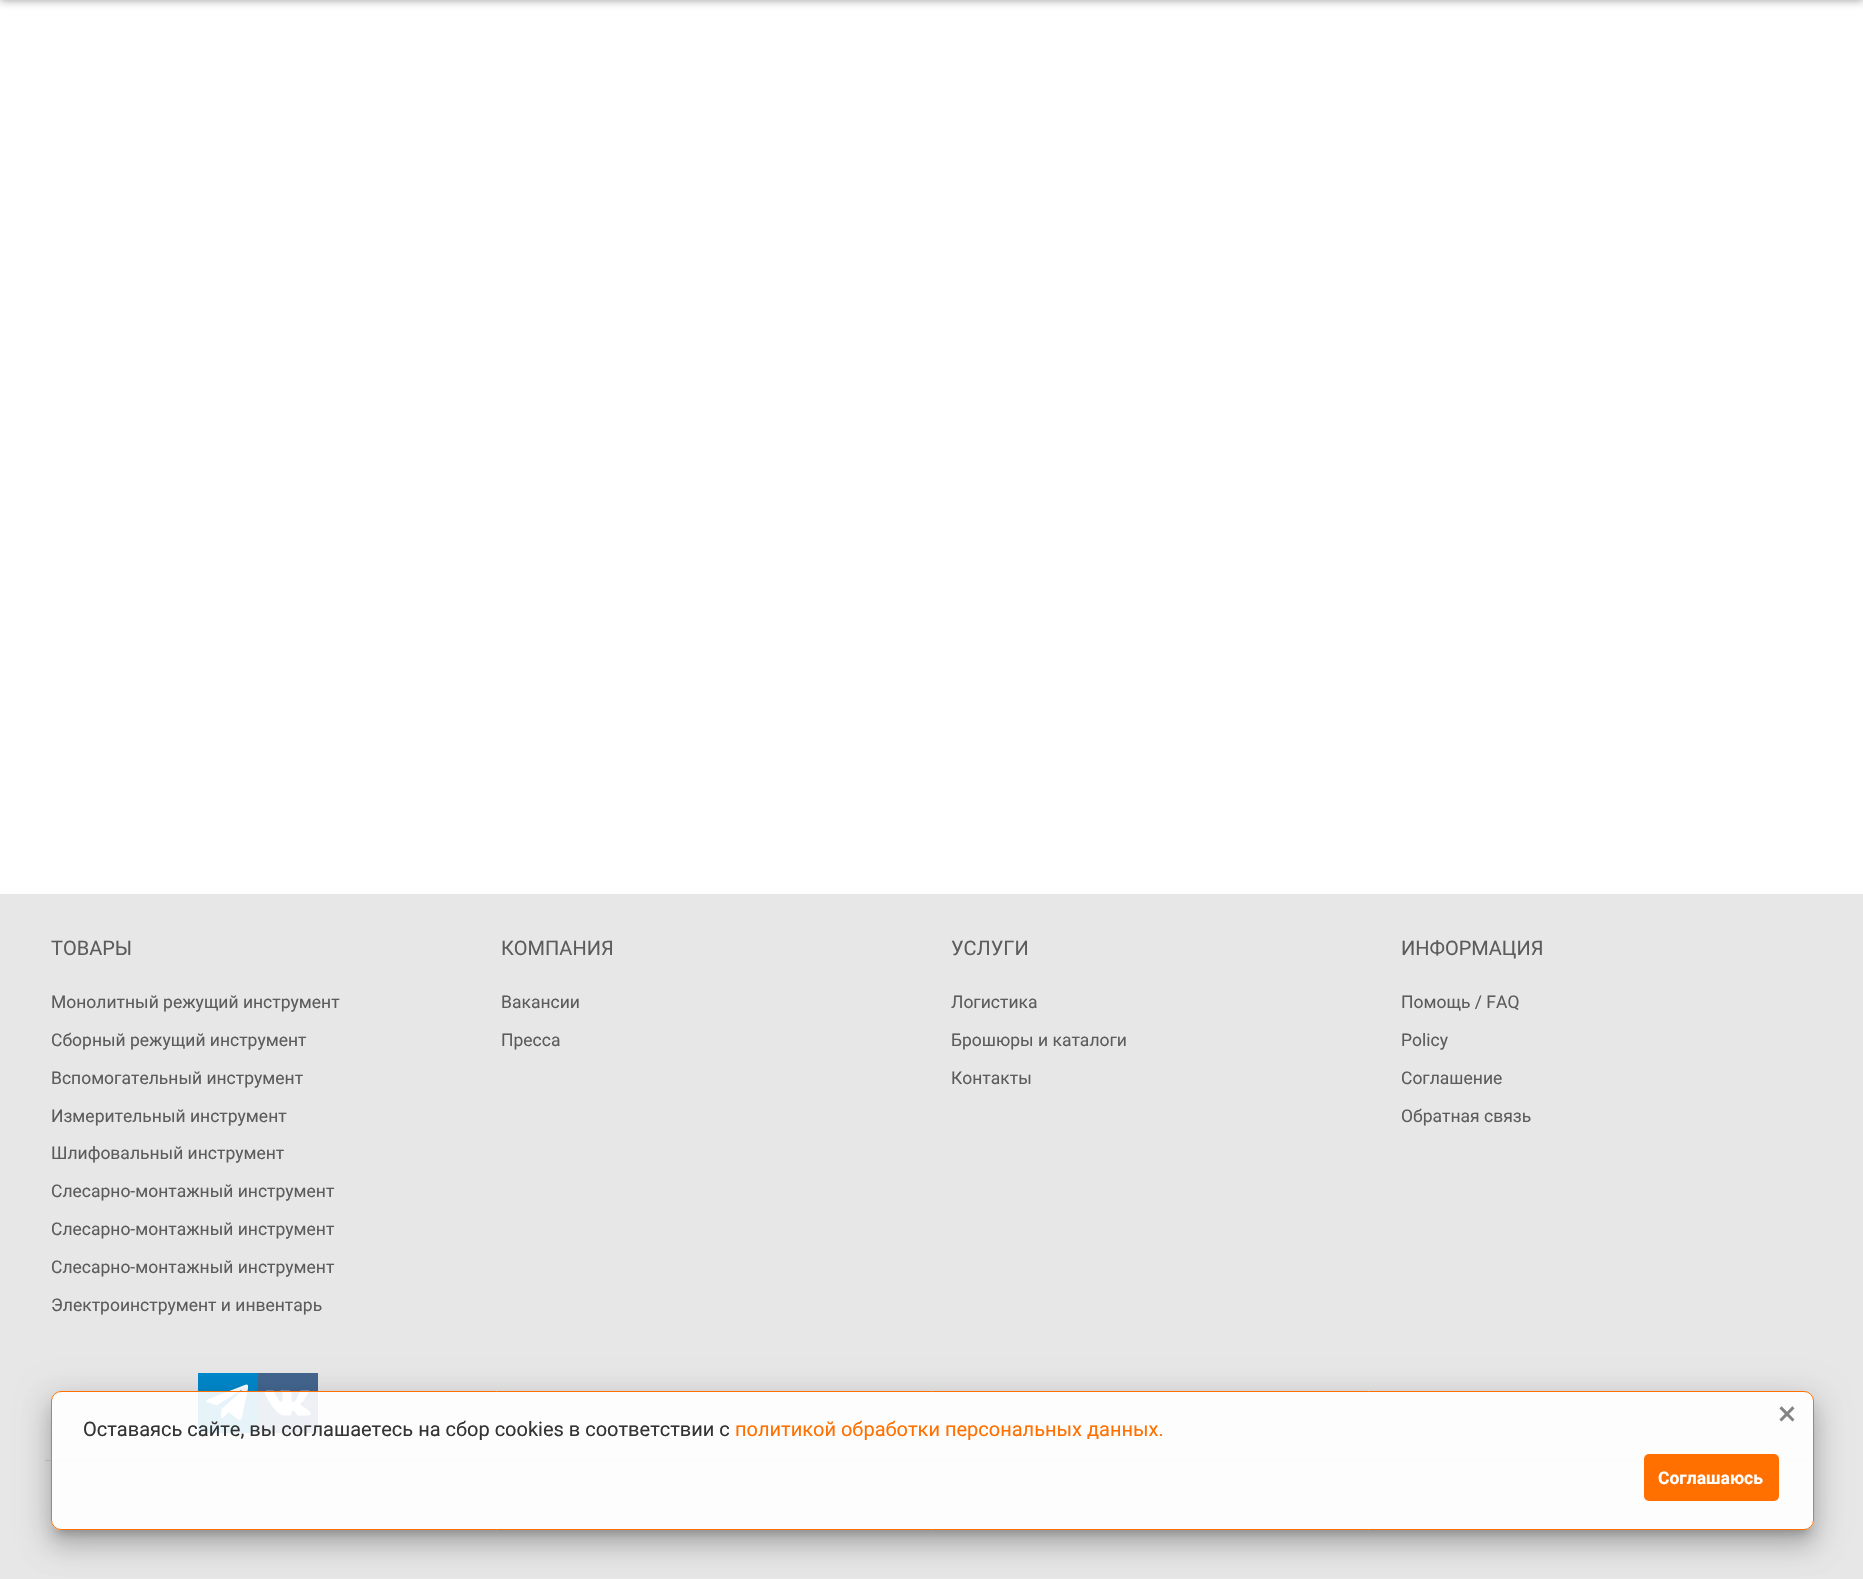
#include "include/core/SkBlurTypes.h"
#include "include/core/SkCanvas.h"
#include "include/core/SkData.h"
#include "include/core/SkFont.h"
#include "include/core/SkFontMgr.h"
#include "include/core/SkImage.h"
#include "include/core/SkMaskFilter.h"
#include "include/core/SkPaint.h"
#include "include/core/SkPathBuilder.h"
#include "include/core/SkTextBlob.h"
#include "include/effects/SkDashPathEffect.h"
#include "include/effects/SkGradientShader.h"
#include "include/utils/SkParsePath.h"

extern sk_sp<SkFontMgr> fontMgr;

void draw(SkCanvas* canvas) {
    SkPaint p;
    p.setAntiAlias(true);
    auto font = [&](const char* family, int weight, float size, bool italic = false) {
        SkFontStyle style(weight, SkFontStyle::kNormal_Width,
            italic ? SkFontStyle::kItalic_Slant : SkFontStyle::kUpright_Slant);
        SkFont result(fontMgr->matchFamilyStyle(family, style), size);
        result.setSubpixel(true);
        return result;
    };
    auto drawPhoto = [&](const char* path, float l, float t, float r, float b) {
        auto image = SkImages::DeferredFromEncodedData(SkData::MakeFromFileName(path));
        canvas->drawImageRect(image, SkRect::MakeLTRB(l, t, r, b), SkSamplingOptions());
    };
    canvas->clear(0xFFFFFFFF);
    p.setColor(0x66000000);
    p.setMaskFilter(SkMaskFilter::MakeBlur(kNormal_SkBlurStyle, 5));
    canvas->drawRect(SkRect::MakeLTRB(0, -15, 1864, 0), p);
    p.setMaskFilter(nullptr);
    p.setColor(0xFFE7E7E7);
    canvas->drawRect(SkRect::MakeLTRB(0, 894, 1863, 1579), p);
    auto font1 = font("Roboto", 400, 20);
    p.setColor(0xFF5C5C5C);
    canvas->drawString("ТОВАРЫ", 51, 955, font1, p);
    auto font2 = font("Roboto", 400, 17.5f);
    {
        const struct { const char* s; float x, y; } items[] = {
            {"Монолитный режущий инструмент", 51, 1008},
            {"Сборный режущий инструмент", 51, 1046},
            {"Вспомогательный инструмент", 51, 1084},
            {"Измерительный инструмент", 51, 1122},
            {"Шлифовальный инструмент", 51, 1159},
            {"Слесарно-монтажный инструмент", 51, 1197},
            {"Слесарно-монтажный инструмент", 51, 1235},
            {"Слесарно-монтажный инструмент", 51, 1273},
            {"Электроинструмент и инвентарь", 51, 1311},
        };
        for (auto [s, x, y] : items) {
            canvas->drawString(s, x, y, font2, p);
        }
    }
    canvas->drawString("КОМПАНИЯ", 501, 955, font1, p);
    canvas->drawString("Вакансии", 501, 1008, font2, p);
    canvas->drawString("Пресса", 501, 1046, font2, p);
    canvas->drawString("УСЛУГИ", 951, 955, font1, p);
    {
        const struct { const char* s; float x, y; } items[] = {
            {"Логистика", 951, 1008},
            {"Брошюры и каталоги", 951, 1046},
            {"Контакты", 951, 1084},
        };
        for (auto [s, x, y] : items) {
            canvas->drawString(s, x, y, font2, p);
        }
    }
    canvas->drawString("ИНФОРМАЦИЯ", 1401, 955, font1, p);
    {
        const struct { const char* s; float x, y; } items[] = {
            {"Помощь / FAQ", 1401, 1008},
            {"Policy", 1401, 1046},
            {"Соглашение", 1401, 1084},
            {"Обратная связь", 1401, 1122},
        };
        for (auto [s, x, y] : items) {
            canvas->drawString(s, x, y, font2, p);
        }
    }
    p.setColor(0xFF0088CC);
    canvas->drawRect(SkRect::MakeLTRB(198, 1373, 258, 1433), p);
    drawPhoto("media/1.png", 206, 1384, 248, 1420);
    p.setColor(0xFF43668F);
    canvas->drawRect(SkRect::MakeLTRB(258, 1373, 318, 1433), p);
    drawPhoto("media/2.png", 264, 1390, 311, 1416);
    p.setColor(0xFFCDCDCD);
    canvas->drawRect(SkRect::MakeLTRB(45, 1460, 1814, 1461), p);
    canvas->save();
    canvas->clipPath(SkPathBuilder(SkPathFillType::kEvenOdd).moveTo(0, 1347).lineTo(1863, 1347).lineTo(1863, 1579).lineTo(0, 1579).close().moveTo(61, 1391).lineTo(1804, 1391).cubicTo(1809.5f, 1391, 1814, 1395.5f, 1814, 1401).lineTo(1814, 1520).cubicTo(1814, 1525.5f, 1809.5f, 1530, 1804, 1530).lineTo(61, 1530).cubicTo(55.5f, 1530, 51, 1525.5f, 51, 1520).lineTo(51, 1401).cubicTo(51, 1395.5f, 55.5f, 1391, 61, 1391).close().detach(), true);
    p.setColor(0x1F000000);
    p.setMaskFilter(SkMaskFilter::MakeBlur(kNormal_SkBlurStyle, 15));
    canvas->drawRoundRect(SkRect::MakeLTRB(46, 1393, 1819, 1541), 15, 15, p);
    p.setMaskFilter(nullptr);
    canvas->restore();
    canvas->save();
    canvas->clipPath(SkPathBuilder(SkPathFillType::kEvenOdd).moveTo(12, 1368).lineTo(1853, 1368).lineTo(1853, 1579).lineTo(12, 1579).close().moveTo(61, 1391).lineTo(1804, 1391).cubicTo(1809.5f, 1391, 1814, 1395.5f, 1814, 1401).lineTo(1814, 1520).cubicTo(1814, 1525.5f, 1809.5f, 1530, 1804, 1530).lineTo(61, 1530).cubicTo(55.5f, 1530, 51, 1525.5f, 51, 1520).lineTo(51, 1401).cubicTo(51, 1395.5f, 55.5f, 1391, 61, 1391).close().detach(), true);
    p.setColor(0x24000000);
    p.setMaskFilter(SkMaskFilter::MakeBlur(kNormal_SkBlurStyle, 12));
    canvas->drawRoundRect(SkRect::MakeLTRB(49, 1405, 1816, 1549), 13, 13, p);
    p.setMaskFilter(nullptr);
    canvas->restore();
    canvas->save();
    canvas->clipPath(SkPathBuilder(SkPathFillType::kEvenOdd).moveTo(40, 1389).lineTo(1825, 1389).lineTo(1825, 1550).lineTo(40, 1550).close().moveTo(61, 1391).lineTo(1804, 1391).cubicTo(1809.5f, 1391, 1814, 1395.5f, 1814, 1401).lineTo(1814, 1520).cubicTo(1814, 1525.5f, 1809.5f, 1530, 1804, 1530).lineTo(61, 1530).cubicTo(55.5f, 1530, 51, 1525.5f, 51, 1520).lineTo(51, 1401).cubicTo(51, 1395.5f, 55.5f, 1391, 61, 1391).close().detach(), true);
    p.setColor(0x33000000);
    p.setMaskFilter(SkMaskFilter::MakeBlur(kNormal_SkBlurStyle, 5));
    canvas->drawRoundRect(SkRect::MakeLTRB(56, 1405, 1809, 1534), 5, 5, p);
    p.setMaskFilter(nullptr);
    canvas->restore();
    p.setColor(0xE6FFFFFF);
    canvas->drawRoundRect(SkRect::MakeLTRB(51.5f, 1391.5f, 1813.5f, 1529.5f), 9.5f, 9.5f, p);
    p.setStyle(SkPaint::kStroke_Style);
    p.setStrokeWidth(1);
    p.setColor(0xFFFF7000);
    canvas->drawRoundRect(SkRect::MakeLTRB(51.5f, 1391.5f, 1813.5f, 1529.5f), 9.5f, 9.5f, p);
    auto font3 = font("Roboto", 400, 34);
    p.setStyle(SkPaint::kFill_Style);
    p.setColor(0xFF848484);
    canvas->drawString("×", 1778, 1425, font3, p);
    p.setColor(0xFF333333);
    canvas->drawString("Оставаясь сайте, вы соглашаетесь на сбор cookies в соответствии с", 83, 1436, font1, p);
    p.setColor(0xFFFF7000);
    canvas->drawString("политикой обработки персональных данных.", 735, 1436, font1, p);
    canvas->drawRoundRect(SkRect::MakeLTRB(1644, 1454, 1779, 1501), 5, 5, p);
    auto font4 = font("Roboto", 700, 17.5f);
    p.setColor(0xFFFFFFFF);
    canvas->drawString("Соглашаюсь", 1658, 1484, font4, p);
}
